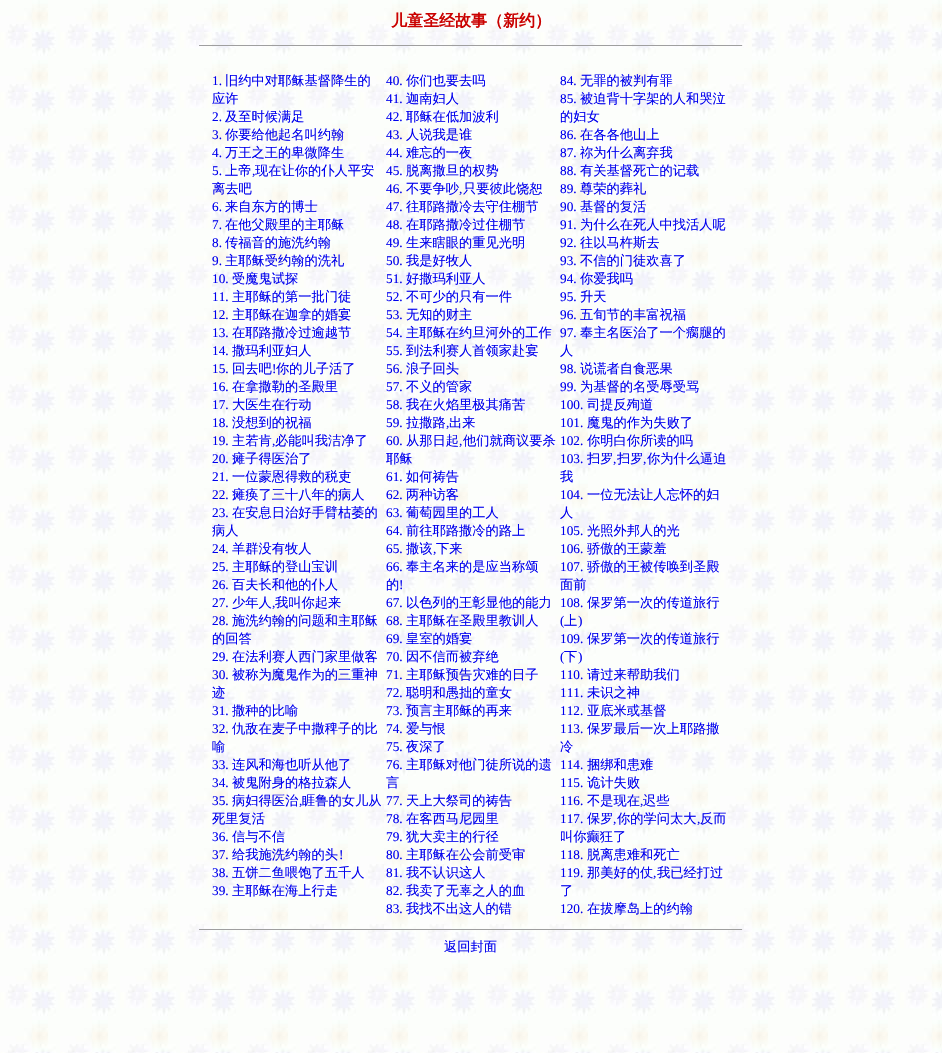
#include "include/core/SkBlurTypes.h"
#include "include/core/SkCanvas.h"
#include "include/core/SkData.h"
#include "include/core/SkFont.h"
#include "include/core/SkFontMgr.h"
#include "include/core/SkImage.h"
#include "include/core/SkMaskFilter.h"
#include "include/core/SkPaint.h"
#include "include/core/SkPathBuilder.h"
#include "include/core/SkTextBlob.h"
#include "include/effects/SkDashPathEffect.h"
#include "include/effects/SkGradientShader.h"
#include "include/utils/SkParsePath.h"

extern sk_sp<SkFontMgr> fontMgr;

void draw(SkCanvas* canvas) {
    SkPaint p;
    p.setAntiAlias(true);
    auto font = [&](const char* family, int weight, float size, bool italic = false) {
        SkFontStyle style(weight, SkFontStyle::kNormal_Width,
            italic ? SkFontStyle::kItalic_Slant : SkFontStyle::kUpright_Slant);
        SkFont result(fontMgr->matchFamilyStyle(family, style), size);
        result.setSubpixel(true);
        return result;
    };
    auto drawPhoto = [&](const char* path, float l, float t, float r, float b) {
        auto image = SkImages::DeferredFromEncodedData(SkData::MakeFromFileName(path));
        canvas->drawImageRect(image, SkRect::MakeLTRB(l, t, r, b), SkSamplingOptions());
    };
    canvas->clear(0xFFFFFFFF);
    drawPhoto("media/1.png", 0, 0, 942, 1053);
    auto font1 = font("WenQuanYi Zen Hei", 700, 16);
    p.setColor(0xFFCA0100);
    canvas->drawString("儿童圣经故事（新约）", 391, 26, font1, p);
    p.setColor(0xFF9F9F9F);
    canvas->drawRect(SkRect::MakeLTRB(199, 45, 743, 46), p);
    p.setColor(0xFFEEEEEE);
    canvas->drawRect(SkRect::MakeLTRB(742, 45, 743, 46), p);
    auto font2 = font("Liberation Serif", 400, 13.25f);
    p.setColor(0xFF0000EE);
    canvas->drawString("1.", 212, 85, font2, p);
    auto font3 = font("WenQuanYi Zen Hei", 500, 13.25f);
    canvas->drawString("旧约中对耶稣基督降生的", 225, 85, font3, p);
    canvas->drawString("应许", 212, 103, font3, p);
    canvas->drawString("2.", 212, 121, font2, p);
    canvas->drawString("及至时候满足", 225, 121, font3, p);
    canvas->drawString("3.", 212, 139, font2, p);
    canvas->drawString("你要给他起名叫约翰", 225, 139, font3, p);
    canvas->drawString("4.", 212, 157, font2, p);
    canvas->drawString("万王之王的卑微降生", 225, 157, font3, p);
    canvas->drawString("5.", 212, 175, font2, p);
    canvas->drawString("上帝", 225, 175, font3, p);
    canvas->drawString(",", 252, 175, font2, p);
    canvas->drawString("现在让你的仆人平安", 255, 175, font3, p);
    canvas->drawString("离去吧", 212, 193, font3, p);
    canvas->drawString("6.", 212, 211, font2, p);
    canvas->drawString("来自东方的博士", 225, 211, font3, p);
    canvas->drawString("7.", 212, 229, font2, p);
    canvas->drawString("在他父殿里的主耶稣", 225, 229, font3, p);
    canvas->drawString("8.", 212, 247, font2, p);
    canvas->drawString("传福音的施洗约翰", 225, 247, font3, p);
    canvas->drawString("9.", 212, 265, font2, p);
    canvas->drawString("主耶稣受约翰的洗礼", 225, 265, font3, p);
    canvas->drawString("10.", 212, 283, font2, p);
    canvas->drawString("受魔鬼试探", 232, 283, font3, p);
    canvas->drawString("11.", 212, 301, font2, p);
    canvas->drawString("主耶稣的第一批门徒", 232, 301, font3, p);
    canvas->drawString("12.", 212, 319, font2, p);
    canvas->drawString("主耶稣在迦拿的婚宴", 232, 319, font3, p);
    canvas->drawString("13.", 212, 337, font2, p);
    canvas->drawString("在耶路撒冷过逾越节", 232, 337, font3, p);
    canvas->drawString("14.", 212, 355, font2, p);
    canvas->drawString("撒玛利亚妇人", 232, 355, font3, p);
    canvas->drawString("15.", 212, 373, font2, p);
    canvas->drawString("回去吧", 232, 373, font3, p);
    canvas->drawString("!", 272, 373, font2, p);
    canvas->drawString("你的儿子活了", 276, 373, font3, p);
    canvas->drawString("16.", 212, 391, font2, p);
    canvas->drawString("在拿撒勒的圣殿里", 232, 391, font3, p);
    canvas->drawString("17.", 212, 409, font2, p);
    canvas->drawString("大医生在行动", 232, 409, font3, p);
    canvas->drawString("18.", 212, 427, font2, p);
    canvas->drawString("没想到的祝福", 232, 427, font3, p);
    canvas->drawString("19.", 212, 445, font2, p);
    canvas->drawString("主若肯", 232, 445, font3, p);
    canvas->drawString(",", 272, 445, font2, p);
    canvas->drawString("必能叫我洁净了", 275, 445, font3, p);
    canvas->drawString("20.", 212, 463, font2, p);
    canvas->drawString("瘫子得医治了", 232, 463, font3, p);
    canvas->drawString("21.", 212, 481, font2, p);
    canvas->drawString("一位蒙恩得救的税吏", 232, 481, font3, p);
    canvas->drawString("22.", 212, 499, font2, p);
    canvas->drawString("瘫痪了三十八年的病人", 232, 499, font3, p);
    canvas->drawString("23.", 212, 517, font2, p);
    canvas->drawString("在安息日治好手臂枯萎的", 232, 517, font3, p);
    canvas->drawString("病人", 212, 535, font3, p);
    canvas->drawString("24.", 212, 553, font2, p);
    canvas->drawString("羊群没有牧人", 232, 553, font3, p);
    canvas->drawString("25.", 212, 571, font2, p);
    canvas->drawString("主耶稣的登山宝训", 232, 571, font3, p);
    canvas->drawString("26.", 212, 589, font2, p);
    canvas->drawString("百夫长和他的仆人", 232, 589, font3, p);
    canvas->drawString("27.", 212, 607, font2, p);
    canvas->drawString("少年人", 232, 607, font3, p);
    canvas->drawString(",", 272, 607, font2, p);
    canvas->drawString("我叫你起来", 275, 607, font3, p);
    canvas->drawString("28.", 212, 625, font2, p);
    canvas->drawString("施洗约翰的问题和主耶稣", 232, 625, font3, p);
    canvas->drawString("的回答", 212, 643, font3, p);
    canvas->drawString("29.", 212, 661, font2, p);
    canvas->drawString("在法利赛人西门家里做客", 232, 661, font3, p);
    canvas->drawString("30.", 212, 679, font2, p);
    canvas->drawString("被称为魔鬼作为的三重神", 232, 679, font3, p);
    canvas->drawString("迹", 212, 697, font3, p);
    canvas->drawString("31.", 212, 715, font2, p);
    canvas->drawString("撒种的比喻", 232, 715, font3, p);
    canvas->drawString("32.", 212, 733, font2, p);
    canvas->drawString("仇敌在麦子中撒稗子的比", 232, 733, font3, p);
    canvas->drawString("喻", 212, 751, font3, p);
    canvas->drawString("33.", 212, 769, font2, p);
    canvas->drawString("连风和海也听从他了", 232, 769, font3, p);
    canvas->drawString("34.", 212, 787, font2, p);
    canvas->drawString("被鬼附身的格拉森人", 232, 787, font3, p);
    canvas->drawString("35.", 212, 805, font2, p);
    canvas->drawString("病妇得医治", 232, 805, font3, p);
    canvas->drawString(",", 299, 805, font2, p);
    canvas->drawString("睚鲁的女儿从", 302, 805, font3, p);
    canvas->drawString("死里复活", 212, 823, font3, p);
    canvas->drawString("36.", 212, 841, font2, p);
    canvas->drawString("信与不信", 232, 841, font3, p);
    canvas->drawString("37.", 212, 859, font2, p);
    canvas->drawString("给我施洗约翰的头", 232, 859, font3, p);
    canvas->drawString("!", 339, 859, font2, p);
    canvas->drawString("38.", 212, 877, font2, p);
    canvas->drawString("五饼二鱼喂饱了五千人", 232, 877, font3, p);
    canvas->drawString("39.", 212, 895, font2, p);
    canvas->drawString("主耶稣在海上行走", 232, 895, font3, p);
    canvas->drawString("40.", 386, 85, font2, p);
    canvas->drawString("你们也要去吗", 406, 85, font3, p);
    canvas->drawString("41.", 386, 103, font2, p);
    canvas->drawString("迦南妇人", 406, 103, font3, p);
    canvas->drawString("42.", 386, 121, font2, p);
    canvas->drawString("耶稣在低加波利", 406, 121, font3, p);
    canvas->drawString("43.", 386, 139, font2, p);
    canvas->drawString("人说我是谁", 406, 139, font3, p);
    canvas->drawString("44.", 386, 157, font2, p);
    canvas->drawString("难忘的一夜", 406, 157, font3, p);
    canvas->drawString("45.", 386, 175, font2, p);
    canvas->drawString("脱离撒旦的权势", 406, 175, font3, p);
    canvas->drawString("46.", 386, 193, font2, p);
    canvas->drawString("不要争吵", 406, 193, font3, p);
    canvas->drawString(",", 459, 193, font2, p);
    canvas->drawString("只要彼此饶恕", 463, 193, font3, p);
    canvas->drawString("47.", 386, 211, font2, p);
    canvas->drawString("往耶路撒冷去守住棚节", 406, 211, font3, p);
    canvas->drawString("48.", 386, 229, font2, p);
    canvas->drawString("在耶路撒冷过住棚节", 406, 229, font3, p);
    canvas->drawString("49.", 386, 247, font2, p);
    canvas->drawString("生来瞎眼的重见光明", 406, 247, font3, p);
    canvas->drawString("50.", 386, 265, font2, p);
    canvas->drawString("我是好牧人", 406, 265, font3, p);
    canvas->drawString("51.", 386, 283, font2, p);
    canvas->drawString("好撒玛利亚人", 406, 283, font3, p);
    canvas->drawString("52.", 386, 301, font2, p);
    canvas->drawString("不可少的只有一件", 406, 301, font3, p);
    canvas->drawString("53.", 386, 319, font2, p);
    canvas->drawString("无知的财主", 406, 319, font3, p);
    canvas->drawString("54.", 386, 337, font2, p);
    canvas->drawString("主耶稣在约旦河外的工作", 406, 337, font3, p);
    canvas->drawString("55.", 386, 355, font2, p);
    canvas->drawString("到法利赛人首领家赴宴", 406, 355, font3, p);
    canvas->drawString("56.", 386, 373, font2, p);
    canvas->drawString("浪子回头", 406, 373, font3, p);
    canvas->drawString("57.", 386, 391, font2, p);
    canvas->drawString("不义的管家", 406, 391, font3, p);
    canvas->drawString("58.", 386, 409, font2, p);
    canvas->drawString("我在火焰里极其痛苦", 406, 409, font3, p);
    canvas->drawString("59.", 386, 427, font2, p);
    canvas->drawString("拉撒路", 406, 427, font3, p);
    canvas->drawString(",", 446, 427, font2, p);
    canvas->drawString("出来", 449, 427, font3, p);
    canvas->drawString("60.", 386, 445, font2, p);
    canvas->drawString("从那日起", 406, 445, font3, p);
    canvas->drawString(",", 459, 445, font2, p);
    canvas->drawString("他们就商议要杀", 463, 445, font3, p);
    canvas->drawString("耶稣", 386, 463, font3, p);
    canvas->drawString("61.", 386, 481, font2, p);
    canvas->drawString("如何祷告", 406, 481, font3, p);
    canvas->drawString("62.", 386, 499, font2, p);
    canvas->drawString("两种访客", 406, 499, font3, p);
    canvas->drawString("63.", 386, 517, font2, p);
    canvas->drawString("葡萄园里的工人", 406, 517, font3, p);
    canvas->drawString("64.", 386, 535, font2, p);
    canvas->drawString("前往耶路撒冷的路上", 406, 535, font3, p);
    canvas->drawString("65.", 386, 553, font2, p);
    canvas->drawString("撒该", 406, 553, font3, p);
    canvas->drawString(",", 433, 553, font2, p);
    canvas->drawString("下来", 436, 553, font3, p);
    canvas->drawString("66.", 386, 571, font2, p);
    canvas->drawString("奉主名来的是应当称颂", 406, 571, font3, p);
    canvas->drawString("的", 386, 589, font3, p);
    canvas->drawString("!", 399, 589, font2, p);
    canvas->drawString("67.", 386, 607, font2, p);
    canvas->drawString("以色列的王彰显他的能力", 406, 607, font3, p);
    canvas->drawString("68.", 386, 625, font2, p);
    canvas->drawString("主耶稣在圣殿里教训人", 406, 625, font3, p);
    canvas->drawString("69.", 386, 643, font2, p);
    canvas->drawString("皇室的婚宴", 406, 643, font3, p);
    canvas->drawString("70.", 386, 661, font2, p);
    canvas->drawString("因不信而被弃绝", 406, 661, font3, p);
    canvas->drawString("71.", 386, 679, font2, p);
    canvas->drawString("主耶稣预告灾难的日子", 406, 679, font3, p);
    canvas->drawString("72.", 386, 697, font2, p);
    canvas->drawString("聪明和愚拙的童女", 406, 697, font3, p);
    canvas->drawString("73.", 386, 715, font2, p);
    canvas->drawString("预言主耶稣的再来", 406, 715, font3, p);
    canvas->drawString("74.", 386, 733, font2, p);
    canvas->drawString("爱与恨", 406, 733, font3, p);
    canvas->drawString("75.", 386, 751, font2, p);
    canvas->drawString("夜深了", 406, 751, font3, p);
    canvas->drawString("76.", 386, 769, font2, p);
    canvas->drawString("主耶稣对他门徒所说的遗", 406, 769, font3, p);
    canvas->drawString("言", 386, 787, font3, p);
    canvas->drawString("77.", 386, 805, font2, p);
    canvas->drawString("天上大祭司的祷告", 406, 805, font3, p);
    canvas->drawString("78.", 386, 823, font2, p);
    canvas->drawString("在客西马尼园里", 406, 823, font3, p);
    canvas->drawString("79.", 386, 841, font2, p);
    canvas->drawString("犹大卖主的行径", 406, 841, font3, p);
    canvas->drawString("80.", 386, 859, font2, p);
    canvas->drawString("主耶稣在公会前受审", 406, 859, font3, p);
    canvas->drawString("81.", 386, 877, font2, p);
    canvas->drawString("我不认识这人", 406, 877, font3, p);
    canvas->drawString("82.", 386, 895, font2, p);
    canvas->drawString("我卖了无辜之人的血", 406, 895, font3, p);
    canvas->drawString("83.", 386, 913, font2, p);
    canvas->drawString("我找不出这人的错", 406, 913, font3, p);
    canvas->drawString("84.", 560, 85, font2, p);
    canvas->drawString("无罪的被判有罪", 580, 85, font3, p);
    canvas->drawString("85.", 560, 103, font2, p);
    canvas->drawString("被迫背十字架的人和哭泣", 580, 103, font3, p);
    canvas->drawString("的妇女", 560, 121, font3, p);
    canvas->drawString("86.", 560, 139, font2, p);
    canvas->drawString("在各各他山上", 580, 139, font3, p);
    canvas->drawString("87.", 560, 157, font2, p);
    canvas->drawString("祢为什么离弃我", 580, 157, font3, p);
    canvas->drawString("88.", 560, 175, font2, p);
    canvas->drawString("有关基督死亡的记载", 580, 175, font3, p);
    canvas->drawString("89.", 560, 193, font2, p);
    canvas->drawString("尊荣的葬礼", 580, 193, font3, p);
    canvas->drawString("90.", 560, 211, font2, p);
    canvas->drawString("基督的复活", 580, 211, font3, p);
    canvas->drawString("91.", 560, 229, font2, p);
    canvas->drawString("为什么在死人中找活人呢", 580, 229, font3, p);
    canvas->drawString("92.", 560, 247, font2, p);
    canvas->drawString("往以马杵斯去", 580, 247, font3, p);
    canvas->drawString("93.", 560, 265, font2, p);
    canvas->drawString("不信的门徒欢喜了", 580, 265, font3, p);
    canvas->drawString("94.", 560, 283, font2, p);
    canvas->drawString("你爱我吗", 580, 283, font3, p);
    canvas->drawString("95.", 560, 301, font2, p);
    canvas->drawString("升天", 580, 301, font3, p);
    canvas->drawString("96.", 560, 319, font2, p);
    canvas->drawString("五旬节的丰富祝福", 580, 319, font3, p);
    canvas->drawString("97.", 560, 337, font2, p);
    canvas->drawString("奉主名医治了一个瘸腿的", 580, 337, font3, p);
    canvas->drawString("人", 560, 355, font3, p);
    canvas->drawString("98.", 560, 373, font2, p);
    canvas->drawString("说谎者自食恶果", 580, 373, font3, p);
    canvas->drawString("99.", 560, 391, font2, p);
    canvas->drawString("为基督的名受辱受骂", 580, 391, font3, p);
    canvas->drawString("100.", 560, 409, font2, p);
    canvas->drawString("司提反殉道", 587, 409, font3, p);
    canvas->drawString("101.", 560, 427, font2, p);
    canvas->drawString("魔鬼的作为失败了", 587, 427, font3, p);
    canvas->drawString("102.", 560, 445, font2, p);
    canvas->drawString("你明白你所读的吗", 587, 445, font3, p);
    canvas->drawString("103.", 560, 463, font2, p);
    canvas->drawString("扫罗", 587, 463, font3, p);
    canvas->drawString(",", 613, 463, font2, p);
    canvas->drawString("扫罗", 617, 463, font3, p);
    canvas->drawString(",", 643, 463, font2, p);
    canvas->drawString("你为什么逼迫", 647, 463, font3, p);
    canvas->drawString("我", 560, 481, font3, p);
    canvas->drawString("104.", 560, 499, font2, p);
    canvas->drawString("一位无法让人忘怀的妇", 587, 499, font3, p);
    canvas->drawString("人", 560, 517, font3, p);
    canvas->drawString("105.", 560, 535, font2, p);
    canvas->drawString("光照外邦人的光", 587, 535, font3, p);
    canvas->drawString("106.", 560, 553, font2, p);
    canvas->drawString("骄傲的王蒙羞", 587, 553, font3, p);
    canvas->drawString("107.", 560, 571, font2, p);
    canvas->drawString("骄傲的王被传唤到圣殿", 587, 571, font3, p);
    canvas->drawString("面前", 560, 589, font3, p);
    canvas->drawString("108.", 560, 607, font2, p);
    canvas->drawString("保罗第一次的传道旅行", 587, 607, font3, p);
    canvas->drawString("(", 560, 625, font2, p);
    canvas->drawString("上", 564, 625, font3, p);
    canvas->drawString(")", 578, 625, font2, p);
    canvas->drawString("109.", 560, 643, font2, p);
    canvas->drawString("保罗第一次的传道旅行", 587, 643, font3, p);
    canvas->drawString("(", 560, 661, font2, p);
    canvas->drawString("下", 564, 661, font3, p);
    canvas->drawString(")", 578, 661, font2, p);
    canvas->drawString("110.", 560, 679, font2, p);
    canvas->drawString("请过来帮助我们", 587, 679, font3, p);
    canvas->drawString("111.", 560, 697, font2, p);
    canvas->drawString("未识之神", 587, 697, font3, p);
    canvas->drawString("112.", 560, 715, font2, p);
    canvas->drawString("亚底米或基督", 587, 715, font3, p);
    canvas->drawString("113.", 560, 733, font2, p);
    canvas->drawString("保罗最后一次上耶路撒", 587, 733, font3, p);
    canvas->drawString("冷", 560, 751, font3, p);
    canvas->drawString("114.", 560, 769, font2, p);
    canvas->drawString("捆绑和患难", 587, 769, font3, p);
    canvas->drawString("115.", 560, 787, font2, p);
    canvas->drawString("诡计失败", 587, 787, font3, p);
    canvas->drawString("116.", 560, 805, font2, p);
    canvas->drawString("不是现在", 587, 805, font3, p);
    canvas->drawString(",", 640, 805, font2, p);
    canvas->drawString("迟些", 643, 805, font3, p);
    canvas->drawString("117.", 560, 823, font2, p);
    canvas->drawString("保罗", 587, 823, font3, p);
    canvas->drawString(",", 613, 823, font2, p);
    canvas->drawString("你的学问太大", 617, 823, font3, p);
    canvas->drawString(",", 697, 823, font2, p);
    canvas->drawString("反而", 700, 823, font3, p);
    canvas->drawString("叫你癫狂了", 560, 841, font3, p);
    canvas->drawString("118.", 560, 859, font2, p);
    canvas->drawString("脱离患难和死亡", 587, 859, font3, p);
    canvas->drawString("119.", 560, 877, font2, p);
    canvas->drawString("那美好的仗", 587, 877, font3, p);
    canvas->drawString(",", 653, 877, font2, p);
    canvas->drawString("我已经打过", 657, 877, font3, p);
    canvas->drawString("了", 560, 895, font3, p);
    canvas->drawString("120.", 560, 913, font2, p);
    canvas->drawString("在拔摩岛上的约翰", 587, 913, font3, p);
    p.setColor(0xFF9F9F9F);
    canvas->drawRect(SkRect::MakeLTRB(199, 929, 743, 930), p);
    p.setColor(0xFFEEEEEE);
    canvas->drawRect(SkRect::MakeLTRB(742, 929, 743, 930), p);
    p.setColor(0xFF0000EE);
    canvas->drawString("返回封面", 444, 951, font3, p);
}
